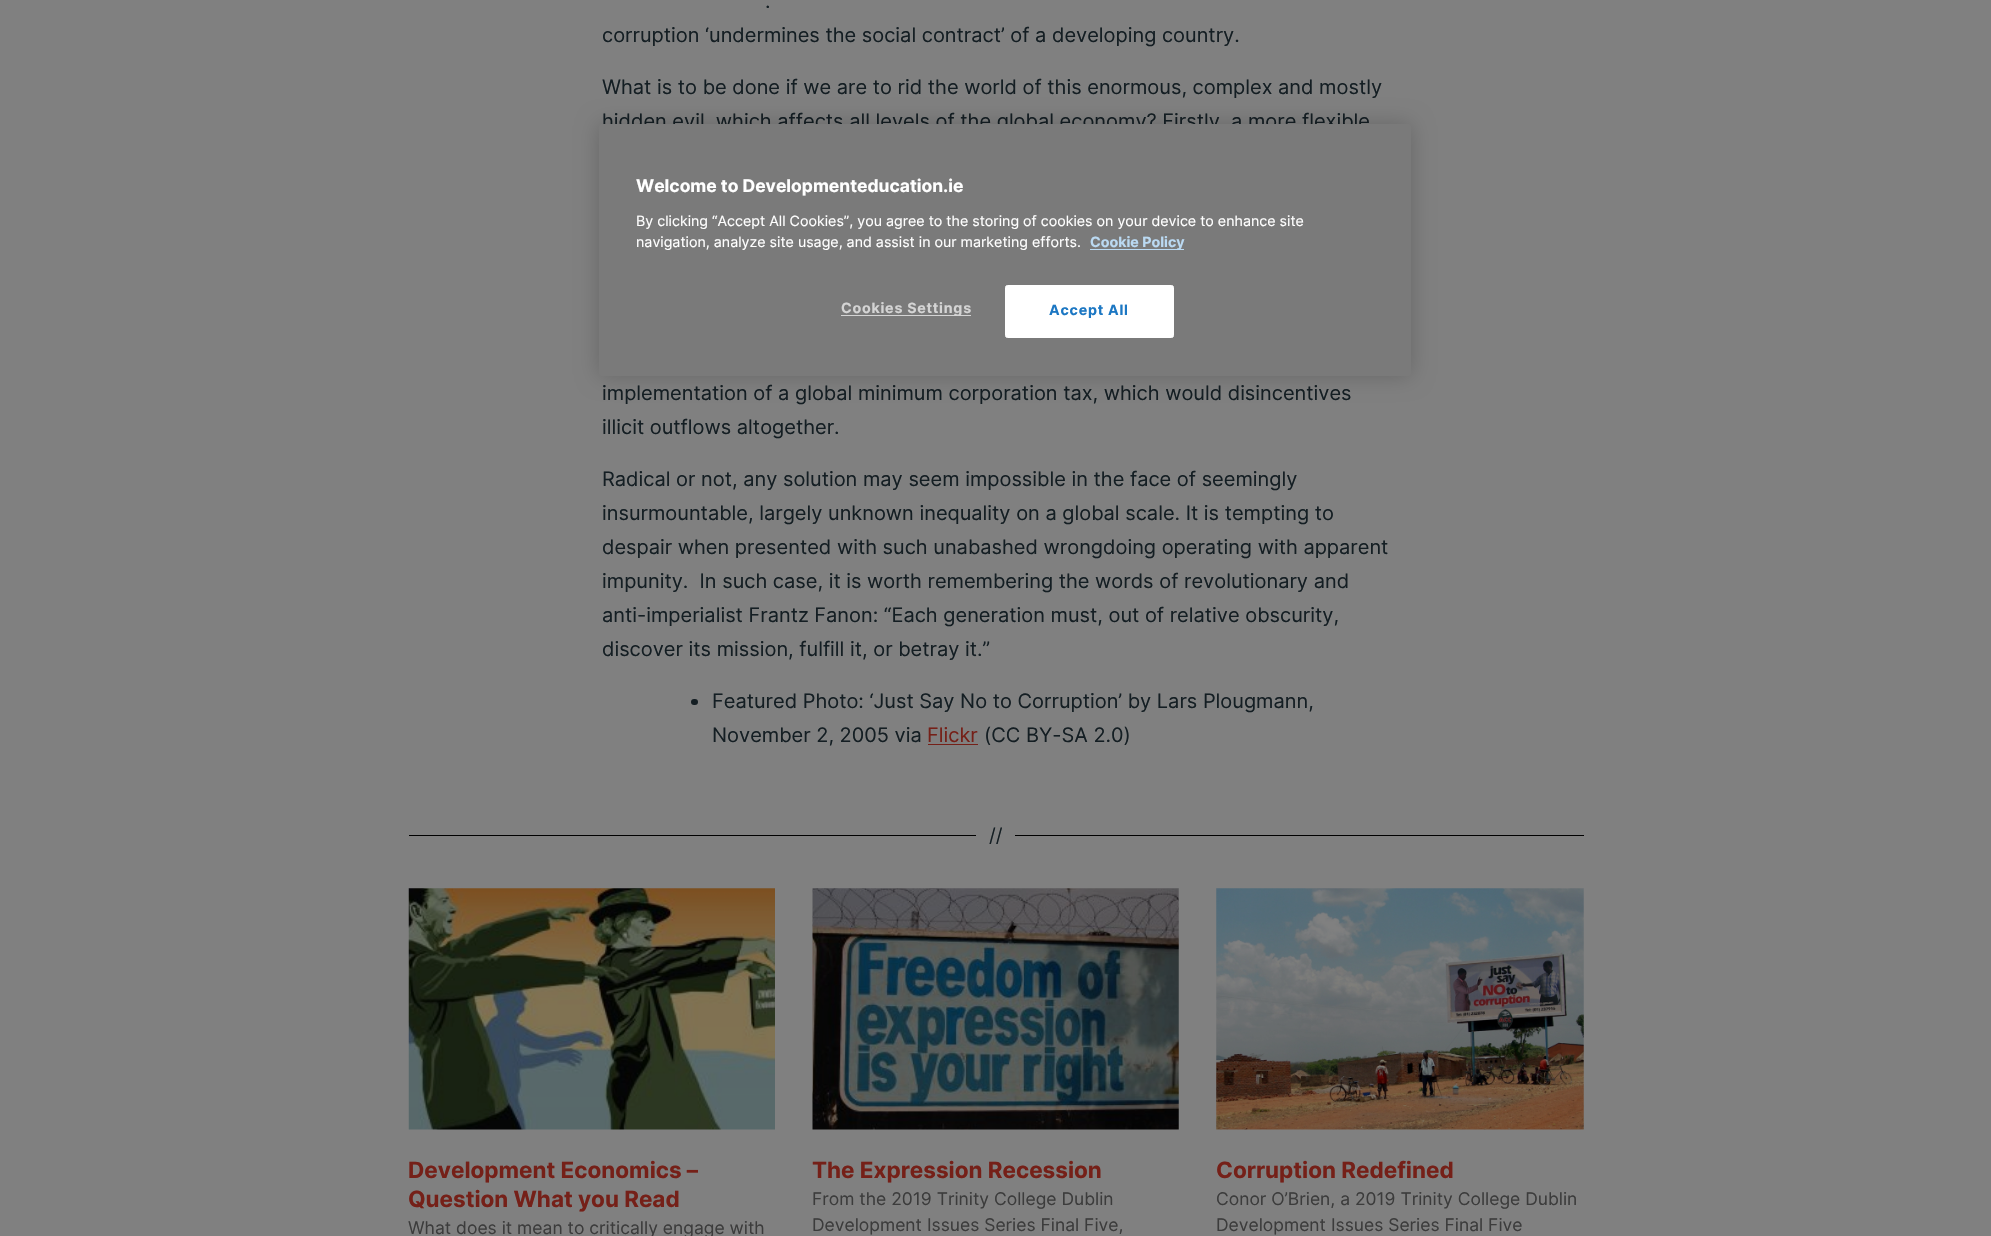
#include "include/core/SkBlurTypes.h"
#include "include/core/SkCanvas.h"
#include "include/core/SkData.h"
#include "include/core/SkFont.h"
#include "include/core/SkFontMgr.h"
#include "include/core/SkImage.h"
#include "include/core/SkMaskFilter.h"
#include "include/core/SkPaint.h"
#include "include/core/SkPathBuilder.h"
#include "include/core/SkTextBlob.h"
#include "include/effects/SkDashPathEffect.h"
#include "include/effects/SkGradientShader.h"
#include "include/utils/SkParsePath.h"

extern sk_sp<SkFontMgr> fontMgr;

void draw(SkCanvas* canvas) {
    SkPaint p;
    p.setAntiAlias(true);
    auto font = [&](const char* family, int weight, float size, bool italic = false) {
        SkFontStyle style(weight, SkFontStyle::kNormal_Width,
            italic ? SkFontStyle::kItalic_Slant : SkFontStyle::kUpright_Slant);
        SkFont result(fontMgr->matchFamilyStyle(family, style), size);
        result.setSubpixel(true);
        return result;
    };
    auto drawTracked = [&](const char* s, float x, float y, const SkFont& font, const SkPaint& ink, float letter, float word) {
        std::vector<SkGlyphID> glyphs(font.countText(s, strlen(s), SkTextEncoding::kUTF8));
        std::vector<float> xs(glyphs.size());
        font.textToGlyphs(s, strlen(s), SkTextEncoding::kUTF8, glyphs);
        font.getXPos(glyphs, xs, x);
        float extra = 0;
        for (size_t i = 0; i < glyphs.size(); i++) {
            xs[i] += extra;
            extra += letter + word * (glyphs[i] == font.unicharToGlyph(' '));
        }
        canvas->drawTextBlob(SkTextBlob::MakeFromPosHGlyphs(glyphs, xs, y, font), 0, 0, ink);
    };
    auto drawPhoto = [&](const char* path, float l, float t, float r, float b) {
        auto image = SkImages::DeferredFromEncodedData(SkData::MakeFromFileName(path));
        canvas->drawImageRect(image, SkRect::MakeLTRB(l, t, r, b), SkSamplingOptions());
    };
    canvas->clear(0xFF808080);
    auto font1 = font("Inter", 400, 20);
    p.setColor(0xFF141E23);
    {
        const struct { const char* s; float x, y; } items[] = {
            {".", 765, 8},
            {"corruption ‘undermines the social contract’ of a developing country.", 602, 42},
            {"What is to be done if we are to rid the world of this enormous, complex and mostly", 602, 94},
            {"hidden evil, which affects all levels of the global economy? Firstly, a more flexible", 602, 128},
            {"implementation of a global minimum corporation tax, which would disincentives", 602, 400},
            {"illicit outflows altogether.", 602, 434},
            {"Radical or not, any solution may seem impossible in the face of seemingly", 602, 486},
            {"insurmountable, largely unknown inequality on a global scale. It is tempting to", 602, 520},
            {"despair when presented with such unabashed wrongdoing operating with apparent", 602, 554},
            {"impunity.  In such case, it is worth remembering the words of revolutionary and", 602, 588},
            {"anti-imperialist Frantz Fanon: “Each generation must, out of relative obscurity,", 602, 622},
            {"discover its mission, fulfill it, or betray it.”", 602, 656},
        };
        for (auto [s, x, y] : items) {
            canvas->drawString(s, x, y, font1, p);
        }
    }
    canvas->drawRoundRect(SkRect::MakeLTRB(691, 699, 698, 705), 3, 3, p);
    canvas->drawString("Featured Photo: ‘Just Say No to Corruption’ by Lars Plougmann,", 712, 708, font1, p);
    canvas->drawString("November 2, 2005 via", 712, 742, font1, p);
    p.setColor(0xFF752018);
    canvas->drawString("Flickr", 927, 742, font1, p);
    canvas->drawRect(SkRect::MakeLTRB(928, 744, 978, 745), p);
    p.setColor(0xFF141E23);
    canvas->drawString("(CC BY-SA 2.0)", 984, 742, font1, p);
    p.setColor(0xFF000000);
    canvas->drawRect(SkRect::MakeLTRB(409, 835, 976, 836), p);
    auto font2 = font("Inter", 400, 19);
    p.setColor(0xFF141E23);
    canvas->drawString("//", 989, 842, font2, p);
    p.setColor(0xFF000000);
    canvas->drawRect(SkRect::MakeLTRB(1015, 835, 1584, 836), p);
    drawPhoto("media/1.png", 408, 888, 775, 1130);
    auto font3 = font("Inter", 700, 22.5f);
    p.setColor(0xFF752018);
    canvas->drawString("Development Economics –", 408, 1178, font3, p);
    canvas->drawString("Question What you Read", 408, 1207, font3, p);
    auto font4 = font("Inter", 400, 17.5f);
    p.setColor(0xFF3C3C3C);
    canvas->drawString("What does it mean to critically engage with", 408, 1234, font4, p);
    drawPhoto("media/2.png", 812, 888, 1179, 1130);
    p.setColor(0xFF752018);
    canvas->drawString("The Expression Recession", 812, 1178, font3, p);
    p.setColor(0xFF3C3C3C);
    canvas->drawString("From the 2019 Trinity College Dublin", 812, 1205, font4, p);
    canvas->drawString("Development Issues Series Final Five,", 812, 1231, font4, p);
    drawPhoto("media/3.png", 1216, 888, 1584, 1130);
    p.setColor(0xFF752018);
    canvas->drawString("Corruption Redefined", 1216, 1178, font3, p);
    p.setColor(0xFF3C3C3C);
    canvas->drawString("Conor O’Brien, a 2019 Trinity College Dublin", 1216, 1205, font4, p);
    canvas->drawString("Development Issues Series Final Five", 1216, 1231, font4, p);
    p.setColor(0x33000000);
    p.setMaskFilter(SkMaskFilter::MakeBlur(kNormal_SkBlurStyle, 11));
    canvas->drawRoundRect(SkRect::MakeLTRB(599, 124, 1411, 376), 3, 3, p);
    p.setMaskFilter(nullptr);
    p.setColor(0xFF7A7A7A);
    canvas->drawRoundRect(SkRect::MakeLTRB(599, 124, 1411, 376), 3, 3, p);
    auto font5 = font("Inter", 700, 17.5f);
    p.setColor(0xFFFFFFFF);
    canvas->drawString("Welcome to Developmenteducation.ie", 636, 192, font5, p);
    auto font6 = font("Inter", 400, 14.25f);
    canvas->drawString("By clicking “Accept All Cookies”, you agree to the storing of cookies on your device to enhance site", 636, 226, font6, p);
    canvas->drawString("navigation, analyze site usage, and assist in our marketing efforts.", 636, 247, font6, p);
    p.setColor(0xFFBAD9F2);
    canvas->drawRect(SkRect::MakeLTRB(1090, 249, 1184, 250), p);
    auto font7 = font("Inter", 700, 14.25f);
    canvas->drawString("Cookie Policy", 1090, 247, font7, p);
    p.setColor(0xFFD4D4D4);
    canvas->drawRect(SkRect::MakeLTRB(841, 315, 971, 316), p);
    drawTracked("Cookies Settings", 841, 313, font7, p, 0.75f, 0);
    p.setColor(0xFFFFFFFF);
    canvas->drawRoundRect(SkRect::MakeLTRB(1005.5f, 285.5f, 1173.5f, 337.5f), 2, 2, p);
    p.setStyle(SkPaint::kStroke_Style);
    p.setStrokeWidth(1);
    canvas->drawRoundRect(SkRect::MakeLTRB(1005.5f, 285.5f, 1173.5f, 337.5f), 2, 2, p);
    p.setStyle(SkPaint::kFill_Style);
    p.setColor(0xFF1C77C3);
    drawTracked("Accept All", 1049, 315, font7, p, 0.75f, 0);
}
